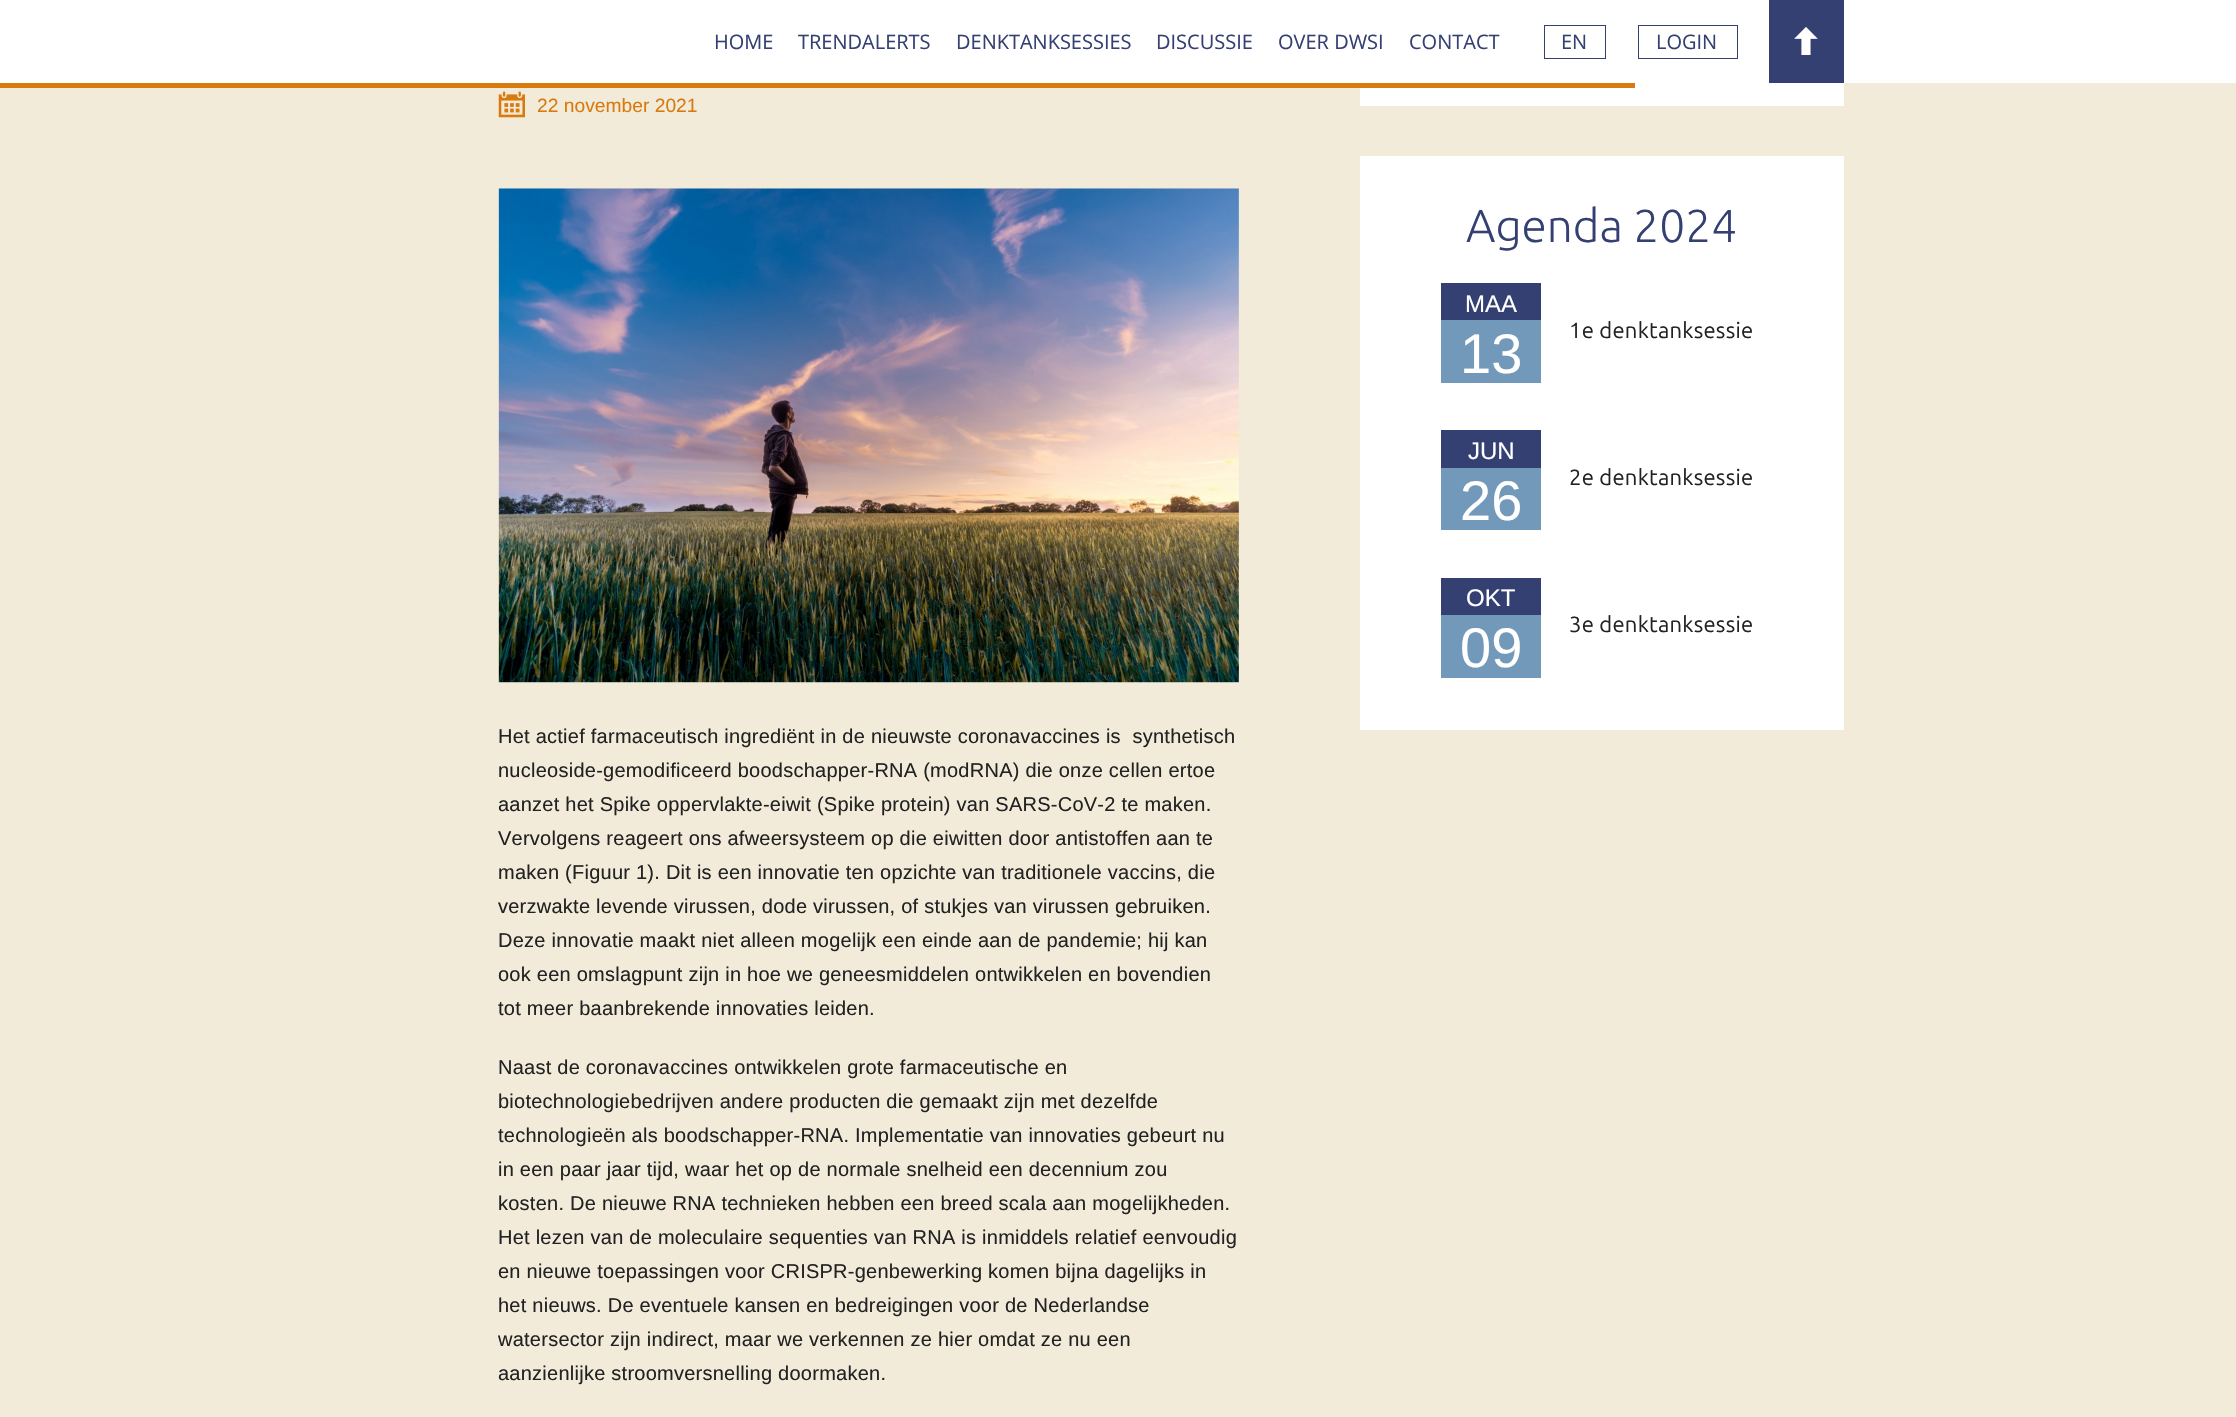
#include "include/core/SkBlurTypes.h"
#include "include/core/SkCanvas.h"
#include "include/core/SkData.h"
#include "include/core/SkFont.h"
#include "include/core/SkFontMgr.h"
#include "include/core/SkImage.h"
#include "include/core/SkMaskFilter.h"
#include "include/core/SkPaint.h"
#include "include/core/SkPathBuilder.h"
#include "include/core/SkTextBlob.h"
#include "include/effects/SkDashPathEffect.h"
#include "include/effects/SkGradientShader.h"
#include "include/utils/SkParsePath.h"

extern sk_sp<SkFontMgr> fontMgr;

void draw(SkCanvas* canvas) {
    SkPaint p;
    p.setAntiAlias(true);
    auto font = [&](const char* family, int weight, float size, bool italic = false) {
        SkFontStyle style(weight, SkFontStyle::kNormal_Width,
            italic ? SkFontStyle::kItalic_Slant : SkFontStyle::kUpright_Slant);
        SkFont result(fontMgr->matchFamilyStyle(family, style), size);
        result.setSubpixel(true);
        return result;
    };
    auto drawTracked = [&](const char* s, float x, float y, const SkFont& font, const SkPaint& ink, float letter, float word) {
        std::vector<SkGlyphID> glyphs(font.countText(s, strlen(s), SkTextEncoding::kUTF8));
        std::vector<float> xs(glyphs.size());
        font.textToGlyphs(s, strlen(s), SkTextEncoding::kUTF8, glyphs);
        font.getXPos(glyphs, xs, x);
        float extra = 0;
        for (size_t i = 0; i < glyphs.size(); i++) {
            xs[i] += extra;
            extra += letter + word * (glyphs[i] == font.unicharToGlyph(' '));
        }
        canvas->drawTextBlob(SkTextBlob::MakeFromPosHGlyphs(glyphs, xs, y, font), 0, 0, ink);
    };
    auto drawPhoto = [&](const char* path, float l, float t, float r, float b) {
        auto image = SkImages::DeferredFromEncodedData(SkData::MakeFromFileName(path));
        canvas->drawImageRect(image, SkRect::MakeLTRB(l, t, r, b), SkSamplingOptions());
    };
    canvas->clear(0xFFF2EBDA);
    p.setColor(0xFFFFFFFF);
    canvas->drawRect(SkRect::MakeLTRB(0, 0, 2236, 83), p);
    auto font1 = font("Open Sans", 400, 20);
    p.setColor(0xFF344072);
    {
        const struct { const char* s; float x, y; } items[] = {
            {"HOME", 714, 49},
            {"TRENDALERTS", 798, 49},
            {"DENKTANKSESSIES", 956, 49},
            {"DISCUSSIE", 1156, 49},
            {"OVER DWSI", 1278, 49},
            {"CONTACT", 1409, 49},
        };
        for (auto [s, x, y] : items) {
            canvas->drawString(s, x, y, font1, p);
        }
    }
    p.setStyle(SkPaint::kStroke_Style);
    p.setStrokeWidth(1);
    canvas->drawRect(SkRect::MakeLTRB(1544.5f, 25.5f, 1605.5f, 58.5f), p);
    p.setStyle(SkPaint::kFill_Style);
    canvas->drawString("EN", 1561, 49, font1, p);
    p.setStyle(SkPaint::kStroke_Style);
    canvas->drawRect(SkRect::MakeLTRB(1638.5f, 25.5f, 1737.5f, 58.5f), p);
    p.setStyle(SkPaint::kFill_Style);
    canvas->drawString("LOGIN", 1656, 49, font1, p);
    canvas->drawRect(SkRect::MakeLTRB(1769, 0, 1844, 83), p);
    auto font2 = font("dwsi", 400, 28);
    p.setColor(0xFFFFFFFF);
    canvas->drawString("a", 1792, 55, font2, p);
    canvas->drawRect(SkRect::MakeLTRB(1360, 83, 1844, 106), p);
    p.setColor(0xFFD87A0E);
    canvas->drawRect(SkRect::MakeLTRB(0, 83, 1635, 88), p);
    drawPhoto("media/1.png", 498, 91, 525, 118);
    auto font3 = font("Liberation Sans", 400, 19.25f);
    canvas->drawString("22 november 2021", 537, 112, font3, p);
    drawPhoto("media/2.png", 498, 188, 1239, 683);
    auto font4 = font("Liberation Sans", 400, 20);
    p.setColor(0xFF222222);
    {
        const struct { const char* s; float x, y; } items[] = {
            {"Het actief farmaceutisch ingrediënt in de nieuwste coronavaccines is  synthetisch", 498, 743},
            {"nucleoside-gemodificeerd boodschapper-RNA (modRNA) die onze cellen ertoe", 498, 777},
            {"aanzet het Spike oppervlakte-eiwit (Spike protein) van SARS-CoV-2 te maken.", 498, 811},
            {"Vervolgens reageert ons afweersysteem op die eiwitten door antistoffen aan te", 498, 845},
            {"maken (Figuur 1). Dit is een innovatie ten opzichte van traditionele vaccins, die", 498, 879},
            {"verzwakte levende virussen, dode virussen, of stukjes van virussen gebruiken.", 498, 913},
            {"Deze innovatie maakt niet alleen mogelijk een einde aan de pandemie; hij kan", 498, 947},
            {"ook een omslagpunt zijn in hoe we geneesmiddelen ontwikkelen en bovendien", 498, 981},
            {"tot meer baanbrekende innovaties leiden.", 498, 1015},
            {"Naast de coronavaccines ontwikkelen grote farmaceutische en", 498, 1074},
            {"biotechnologiebedrijven andere producten die gemaakt zijn met dezelfde", 498, 1108},
            {"technologieën als boodschapper-RNA. Implementatie van innovaties gebeurt nu", 498, 1142},
            {"in een paar jaar tijd, waar het op de normale snelheid een decennium zou", 498, 1176},
            {"kosten. De nieuwe RNA technieken hebben een breed scala aan mogelijkheden.", 498, 1210},
            {"Het lezen van de moleculaire sequenties van RNA is inmiddels relatief eenvoudig", 498, 1244},
            {"en nieuwe toepassingen voor CRISPR-genbewerking komen bijna dagelijks in", 498, 1278},
            {"het nieuws. De eventuele kansen en bedreigingen voor de Nederlandse", 498, 1312},
            {"watersector zijn indirect, maar we verkennen ze hier omdat ze nu een", 498, 1346},
            {"aanzienlijke stroomversnelling doormaken.", 498, 1380},
        };
        for (auto [s, x, y] : items) {
            drawTracked(s, x, y, font4, p, 0.25f, 0);
        }
    }
    p.setColor(0xFFFFFFFF);
    canvas->drawRect(SkRect::MakeLTRB(1360, 156, 1844, 730), p);
    auto font5 = font("Ubuntu", 300, 46);
    p.setColor(0xFF344072);
    canvas->drawString("Agenda 2024", 1466, 242, font5, p);
    canvas->drawRect(SkRect::MakeLTRB(1441, 283, 1541, 320), p);
    auto font6 = font("Liberation Sans", 400, 24);
    p.setColor(0xFFFFFFFF);
    canvas->drawString("MAA", 1465, 312, font6, p);
    p.setColor(0xFF7299BA);
    canvas->drawRect(SkRect::MakeLTRB(1441, 320, 1541, 383), p);
    auto font7 = font("Liberation Sans", 400, 56);
    p.setColor(0xFFFFFFFF);
    canvas->drawString("13", 1460, 373, font7, p);
    auto font8 = font("Ubuntu", 400, 22);
    p.setColor(0xFF222222);
    drawTracked("1e denktanksessie", 1569, 338, font8, p, 0.25f, 0);
    p.setColor(0xFF344072);
    canvas->drawRect(SkRect::MakeLTRB(1441, 430, 1541, 468), p);
    p.setColor(0xFFFFFFFF);
    canvas->drawString("JUN", 1468, 459, font6, p);
    p.setColor(0xFF7299BA);
    canvas->drawRect(SkRect::MakeLTRB(1441, 468, 1541, 530), p);
    p.setColor(0xFFFFFFFF);
    canvas->drawString("26", 1460, 520, font7, p);
    p.setColor(0xFF222222);
    drawTracked("2e denktanksessie", 1569, 485, font8, p, 0.25f, 0);
    p.setColor(0xFF344072);
    canvas->drawRect(SkRect::MakeLTRB(1441, 578, 1541, 615), p);
    p.setColor(0xFFFFFFFF);
    canvas->drawString("OKT", 1466, 606, font6, p);
    p.setColor(0xFF7299BA);
    canvas->drawRect(SkRect::MakeLTRB(1441, 615, 1541, 678), p);
    p.setColor(0xFFFFFFFF);
    canvas->drawString("09", 1460, 667, font7, p);
    p.setColor(0xFF222222);
    drawTracked("3e denktanksessie", 1569, 632, font8, p, 0.25f, 0);
}
